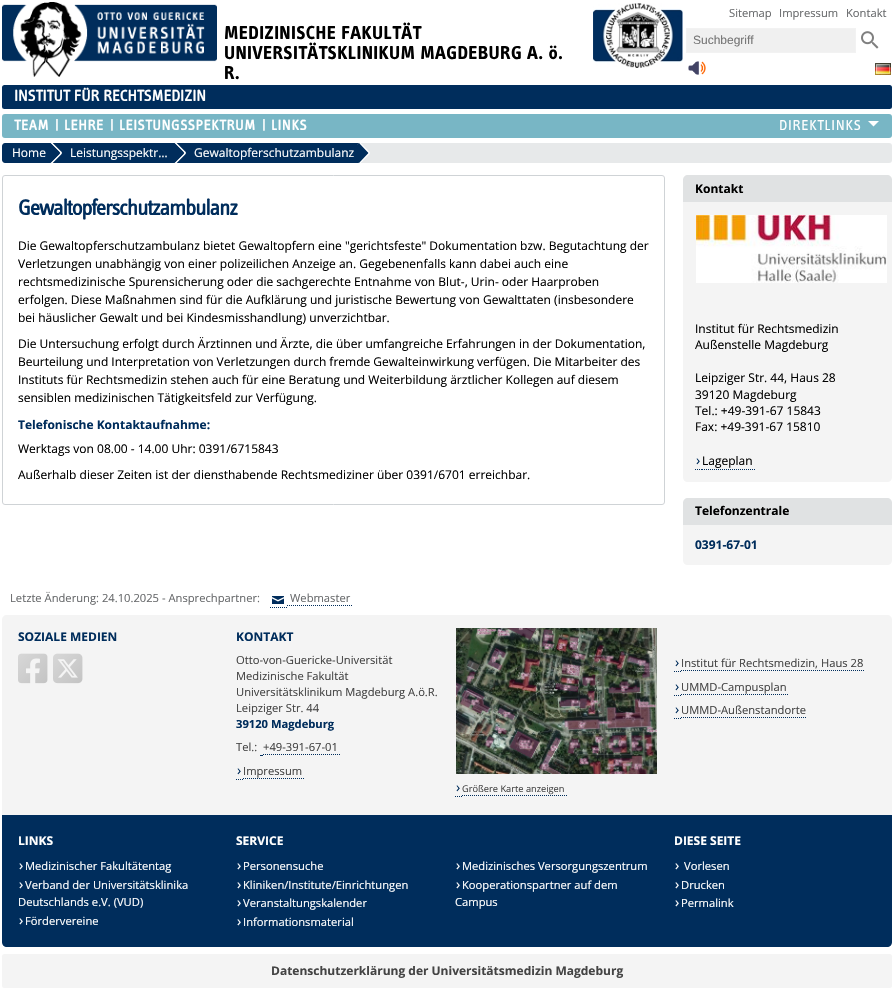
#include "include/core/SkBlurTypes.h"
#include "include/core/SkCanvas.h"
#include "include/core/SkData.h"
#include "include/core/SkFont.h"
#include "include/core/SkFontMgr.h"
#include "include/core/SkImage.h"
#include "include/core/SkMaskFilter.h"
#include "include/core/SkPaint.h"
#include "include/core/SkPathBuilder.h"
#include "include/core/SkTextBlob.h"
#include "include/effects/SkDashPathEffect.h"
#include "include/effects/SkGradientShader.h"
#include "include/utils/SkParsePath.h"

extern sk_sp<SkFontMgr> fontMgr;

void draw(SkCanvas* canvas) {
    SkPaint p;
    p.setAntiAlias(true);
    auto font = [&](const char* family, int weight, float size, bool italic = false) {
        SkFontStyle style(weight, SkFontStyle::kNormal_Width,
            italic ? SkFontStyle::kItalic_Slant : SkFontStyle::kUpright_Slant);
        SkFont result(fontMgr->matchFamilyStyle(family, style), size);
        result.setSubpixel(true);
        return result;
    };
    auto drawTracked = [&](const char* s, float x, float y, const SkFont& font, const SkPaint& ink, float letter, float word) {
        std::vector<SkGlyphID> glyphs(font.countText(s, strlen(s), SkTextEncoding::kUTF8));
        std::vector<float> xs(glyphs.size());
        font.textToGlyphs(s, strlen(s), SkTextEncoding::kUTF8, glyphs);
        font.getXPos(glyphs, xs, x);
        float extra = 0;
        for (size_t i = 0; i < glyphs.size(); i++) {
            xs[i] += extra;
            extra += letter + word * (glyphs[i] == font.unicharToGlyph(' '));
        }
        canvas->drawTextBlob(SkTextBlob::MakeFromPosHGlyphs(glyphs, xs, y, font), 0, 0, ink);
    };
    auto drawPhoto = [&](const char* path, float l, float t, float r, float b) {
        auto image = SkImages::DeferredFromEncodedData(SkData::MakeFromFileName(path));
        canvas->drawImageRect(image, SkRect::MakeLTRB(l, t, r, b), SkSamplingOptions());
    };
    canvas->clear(0xFFFFFFFF);
    drawPhoto("media/1.png", 2, 2, 217, 77);
    auto font1 = font("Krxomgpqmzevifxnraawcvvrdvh", 700, 19.25f);
    p.setColor(0xFF000000);
    {
        const struct { const char* s; float x, y; } items[] = {
            {"MEDIZINISCHE FAKULTÄT", 224, 39},
            {"UNIVERSITÄTSKLINIKUM MAGDEBURG A. ö.", 224, 59},
            {"R.", 224, 79},
        };
        for (auto [s, x, y] : items) {
            drawTracked(s, x, y, font1, p, 0.3f, 0);
        }
    }
    drawPhoto("media/2.png", 593, 3, 683, 68);
    auto font2 = font("Open Sans", 400, 11.2f);
    p.setColor(0xFF686A6C);
    {
        const struct { const char* s; float x, y; } items[] = {
            {"Sitemap", 729, 17},
            {"Impressum", 779, 17},
            {"Kontakt", 846, 17},
        };
        for (auto [s, x, y] : items) {
            canvas->drawString(s, x, y, font2, p);
        }
    }
    p.setColor(0xFFF0F0F0);
    canvas->drawRect(SkRect::MakeLTRB(686.5f, 28.5f, 855.5f, 52.5f), p);
    p.setStyle(SkPaint::kStroke_Style);
    p.setStrokeWidth(1);
    p.setColor(0xFFF2F2F2);
    canvas->drawRect(SkRect::MakeLTRB(686.5f, 28.5f, 855.5f, 52.5f), p);
    auto font3 = font("Liberation Sans", 400, 12);
    p.setStyle(SkPaint::kFill_Style);
    p.setColor(0xFF757575);
    canvas->drawString("Suchbegriff", 693, 44, font3, p);
    drawPhoto("media/3.png", 861, 31, 879, 49);
    drawPhoto("media/4.png", 688, 61, 706, 75);
    drawPhoto("media/5.png", 875, 63, 891, 75);
    p.setColor(0xFF002D5C);
    canvas->drawRoundRect(SkRect::MakeLTRB(2, 85, 892, 109), 2.5f, 2.5f, p);
    auto font4 = font("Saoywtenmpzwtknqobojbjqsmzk", 700, 16);
    p.setColor(0xFFFFFFFF);
    canvas->drawString("INSTITUT FÜR RECHTSMEDIZIN", 14, 101, font4, p);
    p.setColor(0xFF78B6C5);
    canvas->drawRoundRect(SkRect::MakeLTRB(2, 114, 892, 138), 3, 3, p);
    auto font5 = font("Saoywtenmpzwtknqobojbjqsmzk", 700, 14.75f);
    p.setColor(0xFFFFFFFF);
    {
        const struct { const char* s; float x, y; } items[] = {
            {"TEAM", 14, 130},
            {"|", 55, 130},
            {"LEHRE", 64, 130},
            {"|", 110, 130},
            {"LEISTUNGSSPEKTRUM", 119, 130},
            {"|", 262, 130},
            {"LINKS", 271, 130},
        };
        for (auto [s, x, y] : items) {
            drawTracked(s, x, y, font5, p, 0.6f, 0);
        }
    }
    auto font6 = font("Saoywtenmpzwtknqobojbjqsmzk", 400, 14.75f);
    drawTracked("DIREKTLINKS", 779, 130, font6, p, 0.75f, 0);
    canvas->drawPath(SkPathBuilder().moveTo(868, 121).lineTo(873.5f, 126.5f).lineTo(879, 121).close().detach(), p);
    p.setColor(0xFFE7E9EA);
    canvas->drawRoundRect(SkRect::MakeLTRB(2, 143, 892, 163), 3, 3, p);
    p.setColor(0xFF002D5C);
    canvas->drawPath(SkPathBuilder().moveTo(5, 143).lineTo(51, 143).lineTo(51, 163).lineTo(5, 163).cubicTo(3.5f, 163, 2, 161.5f, 2, 160).lineTo(2, 146).cubicTo(2, 144.5f, 3.5f, 143, 5, 143).close().detach(), p);
    auto font7 = font("Open Sans", 400, 12);
    p.setColor(0xFFFFFFFF);
    canvas->drawString("Home", 12, 157, font7, p);
    p.setColor(0xFF002D5C);
    canvas->drawRect(SkRect::MakeLTRB(51, 143, 359, 163), p);
    p.setColor(0xE6FFFFFF);
    canvas->drawPath(SkPathBuilder().moveTo(51.5f, 142).lineTo(50.5f, 143).lineTo(59.5f, 152).cubicTo(60, 152.5f, 60, 153.5f, 59.5f, 154).lineTo(50.5f, 163).lineTo(50.5f, 162.5f).lineTo(51.5f, 164).lineTo(61, 154.5f).cubicTo(62, 153.5f, 62, 152, 61, 151.5f).close().detach(), p);
    canvas->drawPath(SkPathBuilder().moveTo(51.5f, 142).lineTo(50.5f, 143).lineTo(59.5f, 152).cubicTo(60, 152.5f, 60, 153.5f, 59.5f, 154).lineTo(50.5f, 163).lineTo(50.5f, 162.5f).lineTo(51.5f, 164).lineTo(61, 154.5f).cubicTo(62, 153.5f, 62, 152, 61, 151.5f).close().detach(), p);
    p.setColor(0xFF002D5C);
    canvas->drawPath(SkPathBuilder().moveTo(50.5f, 143).lineTo(59.5f, 152).cubicTo(60, 152.5f, 60, 153.5f, 59.5f, 154).lineTo(50.5f, 163).cubicTo(45, 157.5f, 45, 148.5f, 50.5f, 143).close().detach(), p);
    p.setColor(0xFFFFFFFF);
    canvas->drawString("Leistungsspektr…", 70, 157, font7, p);
    p.setColor(0xE6FFFFFF);
    canvas->drawPath(SkPathBuilder().moveTo(175.5f, 142).lineTo(174.5f, 143).lineTo(183.5f, 152).cubicTo(184, 152.5f, 184, 153.5f, 183.5f, 154).lineTo(174.5f, 163).lineTo(174.5f, 162.5f).lineTo(175.5f, 164).lineTo(185, 154.5f).cubicTo(186, 153.5f, 186, 152, 185, 151.5f).close().detach(), p);
    canvas->drawPath(SkPathBuilder().moveTo(175.5f, 142).lineTo(174.5f, 143).lineTo(183.5f, 152).cubicTo(184, 152.5f, 184, 153.5f, 183.5f, 154).lineTo(174.5f, 163).lineTo(174.5f, 162.5f).lineTo(175.5f, 164).lineTo(185, 154.5f).cubicTo(186, 153.5f, 186, 152, 185, 151.5f).close().detach(), p);
    p.setColor(0xFF002D5C);
    canvas->drawPath(SkPathBuilder().moveTo(174.5f, 143).lineTo(183.5f, 152).cubicTo(184, 152.5f, 184, 153.5f, 183.5f, 154).lineTo(174.5f, 163).cubicTo(169, 157.5f, 169, 148.5f, 174.5f, 143).close().detach(), p);
    p.setColor(0xFFFFFFFF);
    canvas->drawString("Gewaltopferschutzambulanz", 194, 157, font7, p);
    p.setColor(0xE6FFFFFF);
    canvas->drawPath(SkPathBuilder().moveTo(359.5f, 142).lineTo(357, 145).lineTo(359, 143).lineTo(367.5f, 152).cubicTo(368.5f, 152.5f, 368.5f, 153.5f, 367.5f, 154).lineTo(359, 163).lineTo(358, 162).lineTo(359.5f, 164).lineTo(369, 154.5f).cubicTo(370, 153.5f, 370, 152, 369, 151.5f).close().detach(), p);
    canvas->drawPath(SkPathBuilder().moveTo(359.5f, 142).lineTo(357, 145).lineTo(359, 143).lineTo(367.5f, 152).cubicTo(368.5f, 152.5f, 368.5f, 153.5f, 367.5f, 154).lineTo(359, 163).lineTo(358, 162).lineTo(359.5f, 164).lineTo(369, 154.5f).cubicTo(370, 153.5f, 370, 152, 369, 151.5f).close().detach(), p);
    p.setColor(0xFF002D5C);
    canvas->drawPath(SkPathBuilder().moveTo(359, 143).lineTo(367.5f, 152).cubicTo(368.5f, 152.5f, 368.5f, 153.5f, 367.5f, 154).lineTo(359, 163).cubicTo(353, 157.5f, 353, 148.5f, 359, 143).close().detach(), p);
    p.setStyle(SkPaint::kStroke_Style);
    p.setColor(0xFFCFD3D6);
    canvas->drawRoundRect(SkRect::MakeLTRB(2.5f, 175.5f, 664.5f, 504.5f), 2.5f, 2.5f, p);
    auto font8 = font("Saoywtenmpzwtknqobojbjqsmzk", 700, 22.5f);
    p.setStyle(SkPaint::kFill_Style);
    p.setColor(0xFF002D5C);
    drawTracked("Gewaltopferschutzambulanz", 18, 215, font8, p, -1.25f, 0);
    p.setColor(0xFF000000);
    {
        const struct { const char* s; float x, y; } items[] = {
            {"Die Gewaltopferschutzambulanz bietet Gewaltopfern eine \"gerichtsfeste\" Dokumentation bzw. Begutachtung der", 18, 250},
            {"Verletzungen unabhängig von einer polizeilichen Anzeige an. Gegebenenfalls kann dabei auch eine", 18, 268},
            {"rechtsmedizinische Spurensicherung oder die sachgerechte Entnahme von Blut-, Urin- oder Haarproben", 18, 286},
            {"erfolgen. Diese Maßnahmen sind für die Aufklärung und juristische Bewertung von Gewalttaten (insbesondere", 18, 304},
            {"bei häuslicher Gewalt und bei Kindesmisshandlung) unverzichtbar.", 18, 322},
            {"Die Untersuchung erfolgt durch Ärztinnen und Ärzte, die über umfangreiche Erfahrungen in der Dokumentation,", 18, 348},
            {"Beurteilung und Interpretation von Verletzungen durch fremde Gewalteinwirkung verfügen. Die Mitarbeiter des", 18, 366},
            {"Instituts für Rechtsmedizin stehen auch für eine Beratung und Weiterbildung ärztlicher Kollegen auf diesem", 18, 384},
            {"sensiblen medizinischen Tätigkeitsfeld zur Verfügung.", 18, 402},
        };
        for (auto [s, x, y] : items) {
            canvas->drawString(s, x, y, font7, p);
        }
    }
    auto font9 = font("Open Sans", 700, 12);
    p.setColor(0xFF002D5C);
    canvas->drawString("Telefonische Kontaktaufnahme:", 18, 429, font9, p);
    p.setColor(0xFF000000);
    canvas->drawString("Werktags von 08.00 - 14.00 Uhr: 0391/6715843", 18, 453, font7, p);
    canvas->drawString("Außerhalb dieser Zeiten ist der diensthabende Rechtsmediziner über 0391/6701 erreichbar.", 18, 479, font7, p);
    p.setColor(0xFFE0E2E3);
    canvas->drawPath(SkPathBuilder().moveTo(688, 175).lineTo(887, 175).cubicTo(890, 175, 892, 177, 892, 180).lineTo(892, 202).lineTo(683, 202).lineTo(683, 180).cubicTo(683, 177, 685, 175, 688, 175).close().detach(), p);
    p.setColor(0xFF000000);
    canvas->drawString("Kontakt", 695, 193, font9, p);
    p.setColor(0xFFF4F4F4);
    canvas->drawPath(SkPathBuilder().moveTo(683, 202).lineTo(892, 202).lineTo(892, 477).cubicTo(892, 480, 890, 482, 887, 482).lineTo(688, 482).cubicTo(685, 482, 683, 480, 683, 477).close().detach(), p);
    drawPhoto("media/6.png", 696, 215, 887, 283);
    p.setColor(0xFF000000);
    {
        const struct { const char* s; float x, y; } items[] = {
            {"Institut für Rechtsmedizin", 695, 333},
            {"Außenstelle Magdeburg", 695, 349},
            {"Leipziger Str. 44, Haus 28", 695, 382},
            {"39120 Magdeburg", 695, 399},
            {"Tel.: +49-391-67 15843", 695, 415},
            {"Fax: +49-391-67 15810", 695, 431},
        };
        for (auto [s, x, y] : items) {
            canvas->drawString(s, x, y, font7, p);
        }
    }
    auto font10 = font("Open Sans", 400, 14);
    p.setColor(0xFF002D5C);
    canvas->drawString("›", 696, 465, font10, p);
    p.setStyle(SkPaint::kStroke_Style);
    canvas->drawPath(SkPathBuilder().moveTo(695, 469.5f).lineTo(696, 469.5f).moveTo(697, 469.5f).lineTo(698, 469.5f).moveTo(699, 469.5f).lineTo(700, 469.5f).moveTo(701, 469.5f).lineTo(702, 469.5f).detach(), p);
    p.setStyle(SkPaint::kFill_Style);
    p.setColor(0xFF000000);
    canvas->drawString("Lageplan", 702, 465, font7, p);
    p.setStyle(SkPaint::kStroke_Style);
    p.setColor(0xFF002D5C);
    p.setPathEffect(SkDashPathEffect::Make({{1, 1}}, 0));
    canvas->drawPath(SkPathBuilder().moveTo(702, 469.5f).lineTo(755, 469.5f).detach(), p);
    p.setPathEffect(nullptr);
    p.setStyle(SkPaint::kFill_Style);
    p.setColor(0xFFE0E2E3);
    canvas->drawPath(SkPathBuilder().moveTo(688, 498).lineTo(887, 498).cubicTo(890, 498, 892, 500, 892, 503).lineTo(892, 525).lineTo(683, 525).lineTo(683, 503).cubicTo(683, 500, 685, 498, 688, 498).close().detach(), p);
    p.setColor(0xFF000000);
    canvas->drawString("Telefonzentrale", 695, 515, font9, p);
    p.setColor(0xFFF4F4F4);
    canvas->drawPath(SkPathBuilder().moveTo(683, 525).lineTo(892, 525).lineTo(892, 560).cubicTo(892, 563, 890, 565, 887, 565).lineTo(688, 565).cubicTo(685, 565, 683, 563, 683, 560).close().detach(), p);
    p.setColor(0xFF002D5C);
    canvas->drawString("0391-67-01", 695, 549, font9, p);
    p.setColor(0xFF686A6C);
    canvas->drawString("Letzte Änderung: 24.10.2025 - Ansprechpartner:", 10, 602, font2, p);
    p.setStyle(SkPaint::kStroke_Style);
    p.setColor(0xFF002D5C);
    p.setPathEffect(SkDashPathEffect::Make({{1, 1}}, 0));
    canvas->drawPath(SkPathBuilder().moveTo(270, 607.5f).lineTo(287, 607.5f).detach(), p);
    p.setPathEffect(nullptr);
    p.setPathEffect(SkDashPathEffect::Make({{1, 1}}, 0));
    canvas->drawPath(SkPathBuilder().moveTo(287, 605.5f).lineTo(352, 605.5f).detach(), p);
    p.setPathEffect(nullptr);
    drawPhoto("media/7.png", 272, 596, 284, 604);
    p.setStyle(SkPaint::kFill_Style);
    p.setColor(0xFF686A6C);
    canvas->drawString("Webmaster", 290, 602, font2, p);
    p.setColor(0xFFF4F4F4);
    canvas->drawPath(SkPathBuilder().moveTo(7, 615).lineTo(887, 615).cubicTo(890, 615, 892, 617, 892, 620).lineTo(892, 815).lineTo(2, 815).lineTo(2, 620).cubicTo(2, 617, 4, 615, 7, 615).close().detach(), p);
    p.setColor(0xFF002D5C);
    canvas->drawString("SOZIALE MEDIEN", 18, 641, font9, p);
    drawPhoto("media/8.png", 18, 653, 48, 684);
    drawPhoto("media/9.png", 53, 653, 83, 684);
    canvas->drawString("KONTAKT", 236, 641, font9, p);
    p.setColor(0xFF444444);
    {
        const struct { const char* s; float x, y; } items[] = {
            {"Otto-von-Guericke-Universität", 236, 664},
            {"Medizinische Fakultät", 236, 680},
            {"Universitätsklinikum Magdeburg A.ö.R.", 236, 696},
            {"Leipziger Str. 44", 236, 712},
        };
        for (auto [s, x, y] : items) {
            canvas->drawString(s, x, y, font2, p);
        }
    }
    auto font11 = font("Open Sans", 700, 11.2f);
    p.setColor(0xFF002D5C);
    canvas->drawString("39120 Magdeburg", 236, 728, font11, p);
    p.setColor(0xFF444444);
    canvas->drawString("Tel.:", 236, 751, font2, p);
    canvas->drawString("+49-391-67-01", 263, 751, font2, p);
    p.setColor(0xFF002D5C);
    canvas->drawRect(SkRect::MakeLTRB(260, 755, 263, 756), p);
    p.setStyle(SkPaint::kStroke_Style);
    p.setPathEffect(SkDashPathEffect::Make({{1, 1}}, 0));
    canvas->drawPath(SkPathBuilder().moveTo(263, 754.5f).lineTo(340, 754.5f).detach(), p);
    p.setPathEffect(nullptr);
    p.setStyle(SkPaint::kFill_Style);
    canvas->drawString("›", 237, 775, font10, p);
    p.setColor(0xFF444444);
    canvas->drawString("Impressum", 243, 775, font2, p);
    p.setStyle(SkPaint::kStroke_Style);
    p.setColor(0xFF002D5C);
    canvas->drawPath(SkPathBuilder().moveTo(236, 779.5f).lineTo(237, 779.5f).moveTo(238, 779.5f).lineTo(239, 779.5f).moveTo(240, 779.5f).lineTo(241, 779.5f).moveTo(242, 779.5f).lineTo(243, 779.5f).detach(), p);
    p.setPathEffect(SkDashPathEffect::Make({{1, 1}}, 0));
    canvas->drawPath(SkPathBuilder().moveTo(243, 778.5f).lineTo(304, 778.5f).detach(), p);
    p.setPathEffect(nullptr);
    p.setStyle(SkPaint::kFill_Style);
    canvas->drawString("›", 675, 667, font10, p);
    p.setStyle(SkPaint::kStroke_Style);
    canvas->drawPath(SkPathBuilder().moveTo(674, 671.5f).lineTo(675, 671.5f).moveTo(676, 671.5f).lineTo(677, 671.5f).moveTo(678, 671.5f).lineTo(679, 671.5f).moveTo(680, 671.5f).lineTo(681, 671.5f).detach(), p);
    p.setStyle(SkPaint::kFill_Style);
    p.setColor(0xFF444444);
    canvas->drawString("Institut für Rechtsmedizin, Haus 28", 681, 667, font2, p);
    p.setStyle(SkPaint::kStroke_Style);
    p.setColor(0xFF002D5C);
    p.setPathEffect(SkDashPathEffect::Make({{1, 1}}, 0));
    canvas->drawPath(SkPathBuilder().moveTo(681, 670.5f).lineTo(865, 670.5f).detach(), p);
    p.setPathEffect(nullptr);
    p.setStyle(SkPaint::kFill_Style);
    canvas->drawString("›", 675, 691, font10, p);
    p.setColor(0xFF444444);
    canvas->drawString("UMMD-Campusplan", 681, 691, font2, p);
    p.setStyle(SkPaint::kStroke_Style);
    p.setColor(0xFF002D5C);
    canvas->drawPath(SkPathBuilder().moveTo(674, 695.5f).lineTo(675, 695.5f).moveTo(676, 695.5f).lineTo(677, 695.5f).moveTo(678, 695.5f).lineTo(679, 695.5f).moveTo(680, 695.5f).lineTo(681, 695.5f).detach(), p);
    p.setPathEffect(SkDashPathEffect::Make({{1, 1}}, 0));
    canvas->drawPath(SkPathBuilder().moveTo(681, 694.5f).lineTo(788, 694.5f).detach(), p);
    p.setPathEffect(nullptr);
    p.setStyle(SkPaint::kFill_Style);
    canvas->drawString("›", 675, 714, font10, p);
    p.setStyle(SkPaint::kStroke_Style);
    canvas->drawPath(SkPathBuilder().moveTo(674, 718.5f).lineTo(675, 718.5f).moveTo(676, 718.5f).lineTo(677, 718.5f).moveTo(678, 718.5f).lineTo(679, 718.5f).moveTo(680, 718.5f).lineTo(681, 718.5f).detach(), p);
    p.setStyle(SkPaint::kFill_Style);
    p.setColor(0xFF444444);
    canvas->drawString("UMMD-Außenstandorte", 681, 714, font2, p);
    p.setStyle(SkPaint::kStroke_Style);
    p.setColor(0xFF002D5C);
    p.setPathEffect(SkDashPathEffect::Make({{1, 1}}, 0));
    canvas->drawPath(SkPathBuilder().moveTo(681, 717.5f).lineTo(807, 717.5f).detach(), p);
    p.setPathEffect(nullptr);
    drawPhoto("media/10.png", 456, 628, 657, 774);
    p.setStyle(SkPaint::kFill_Style);
    canvas->drawString("›", 456, 792, font10, p);
    auto font12 = font("Open Sans", 400, 9.25f);
    p.setColor(0xFF444444);
    canvas->drawString("Größere Karte anzeigen", 462, 792, font12, p);
    p.setStyle(SkPaint::kStroke_Style);
    p.setColor(0xFF002D5C);
    canvas->drawPath(SkPathBuilder().moveTo(455, 796.5f).lineTo(456, 796.5f).moveTo(457, 796.5f).lineTo(458, 796.5f).moveTo(459, 796.5f).lineTo(460, 796.5f).moveTo(461, 796.5f).lineTo(462, 796.5f).detach(), p);
    p.setPathEffect(SkDashPathEffect::Make({{1, 1}}, 0));
    canvas->drawPath(SkPathBuilder().moveTo(462, 795.5f).lineTo(567, 795.5f).detach(), p);
    p.setPathEffect(nullptr);
    p.setStyle(SkPaint::kFill_Style);
    canvas->drawPath(SkPathBuilder().moveTo(2, 815).lineTo(892, 815).lineTo(892, 942).cubicTo(892, 945, 890, 947, 887, 947).lineTo(7, 947).cubicTo(4, 947, 2, 945, 2, 942).close().detach(), p);
    p.setColor(0xFFFFFFFF);
    canvas->drawString("LINKS", 18, 845, font9, p);
    canvas->drawString("›", 19, 870, font10, p);
    canvas->drawString("Medizinischer Fakultätentag", 25, 870, font2, p);
    canvas->drawString("›", 19, 889, font10, p);
    canvas->drawString("Verband der Universitätsklinika", 25, 889, font2, p);
    canvas->drawString("Deutschlands e.V. (VUD)", 18, 906, font2, p);
    canvas->drawString("›", 19, 925, font10, p);
    canvas->drawString("Fördervereine", 25, 925, font2, p);
    canvas->drawString("SERVICE", 236, 845, font9, p);
    canvas->drawString("›", 237, 870, font10, p);
    canvas->drawString("Personensuche", 243, 870, font2, p);
    canvas->drawString("›", 237, 889, font10, p);
    canvas->drawString("Kliniken/Institute/Einrichtungen", 243, 889, font2, p);
    canvas->drawString("›", 237, 907, font10, p);
    canvas->drawString("Veranstaltungskalender", 243, 907, font2, p);
    canvas->drawString("›", 237, 926, font10, p);
    canvas->drawString("Informationsmaterial", 243, 926, font2, p);
    canvas->drawString("›", 456, 870, font10, p);
    canvas->drawString("Medizinisches Versorgungszentrum", 462, 870, font2, p);
    canvas->drawString("›", 456, 889, font10, p);
    canvas->drawString("Kooperationspartner auf dem", 462, 889, font2, p);
    canvas->drawString("Campus", 455, 906, font2, p);
    canvas->drawString("DIESE SEITE", 674, 845, font9, p);
    canvas->drawString("›", 675, 870, font10, p);
    canvas->drawString("Vorlesen", 684, 870, font2, p);
    canvas->drawString("›", 675, 889, font10, p);
    canvas->drawString("Drucken", 681, 889, font2, p);
    canvas->drawString("›", 675, 907, font10, p);
    canvas->drawString("Permalink", 681, 907, font2, p);
    p.setColor(0xFFF4F4F4);
    canvas->drawRoundRect(SkRect::MakeLTRB(2, 954, 892, 988), 2.5f, 2.5f, p);
    p.setColor(0xFF444444);
    canvas->drawString("Datenschutzerklärung der Universitätsmedizin Magdeburg", 271, 975, font9, p);
}
